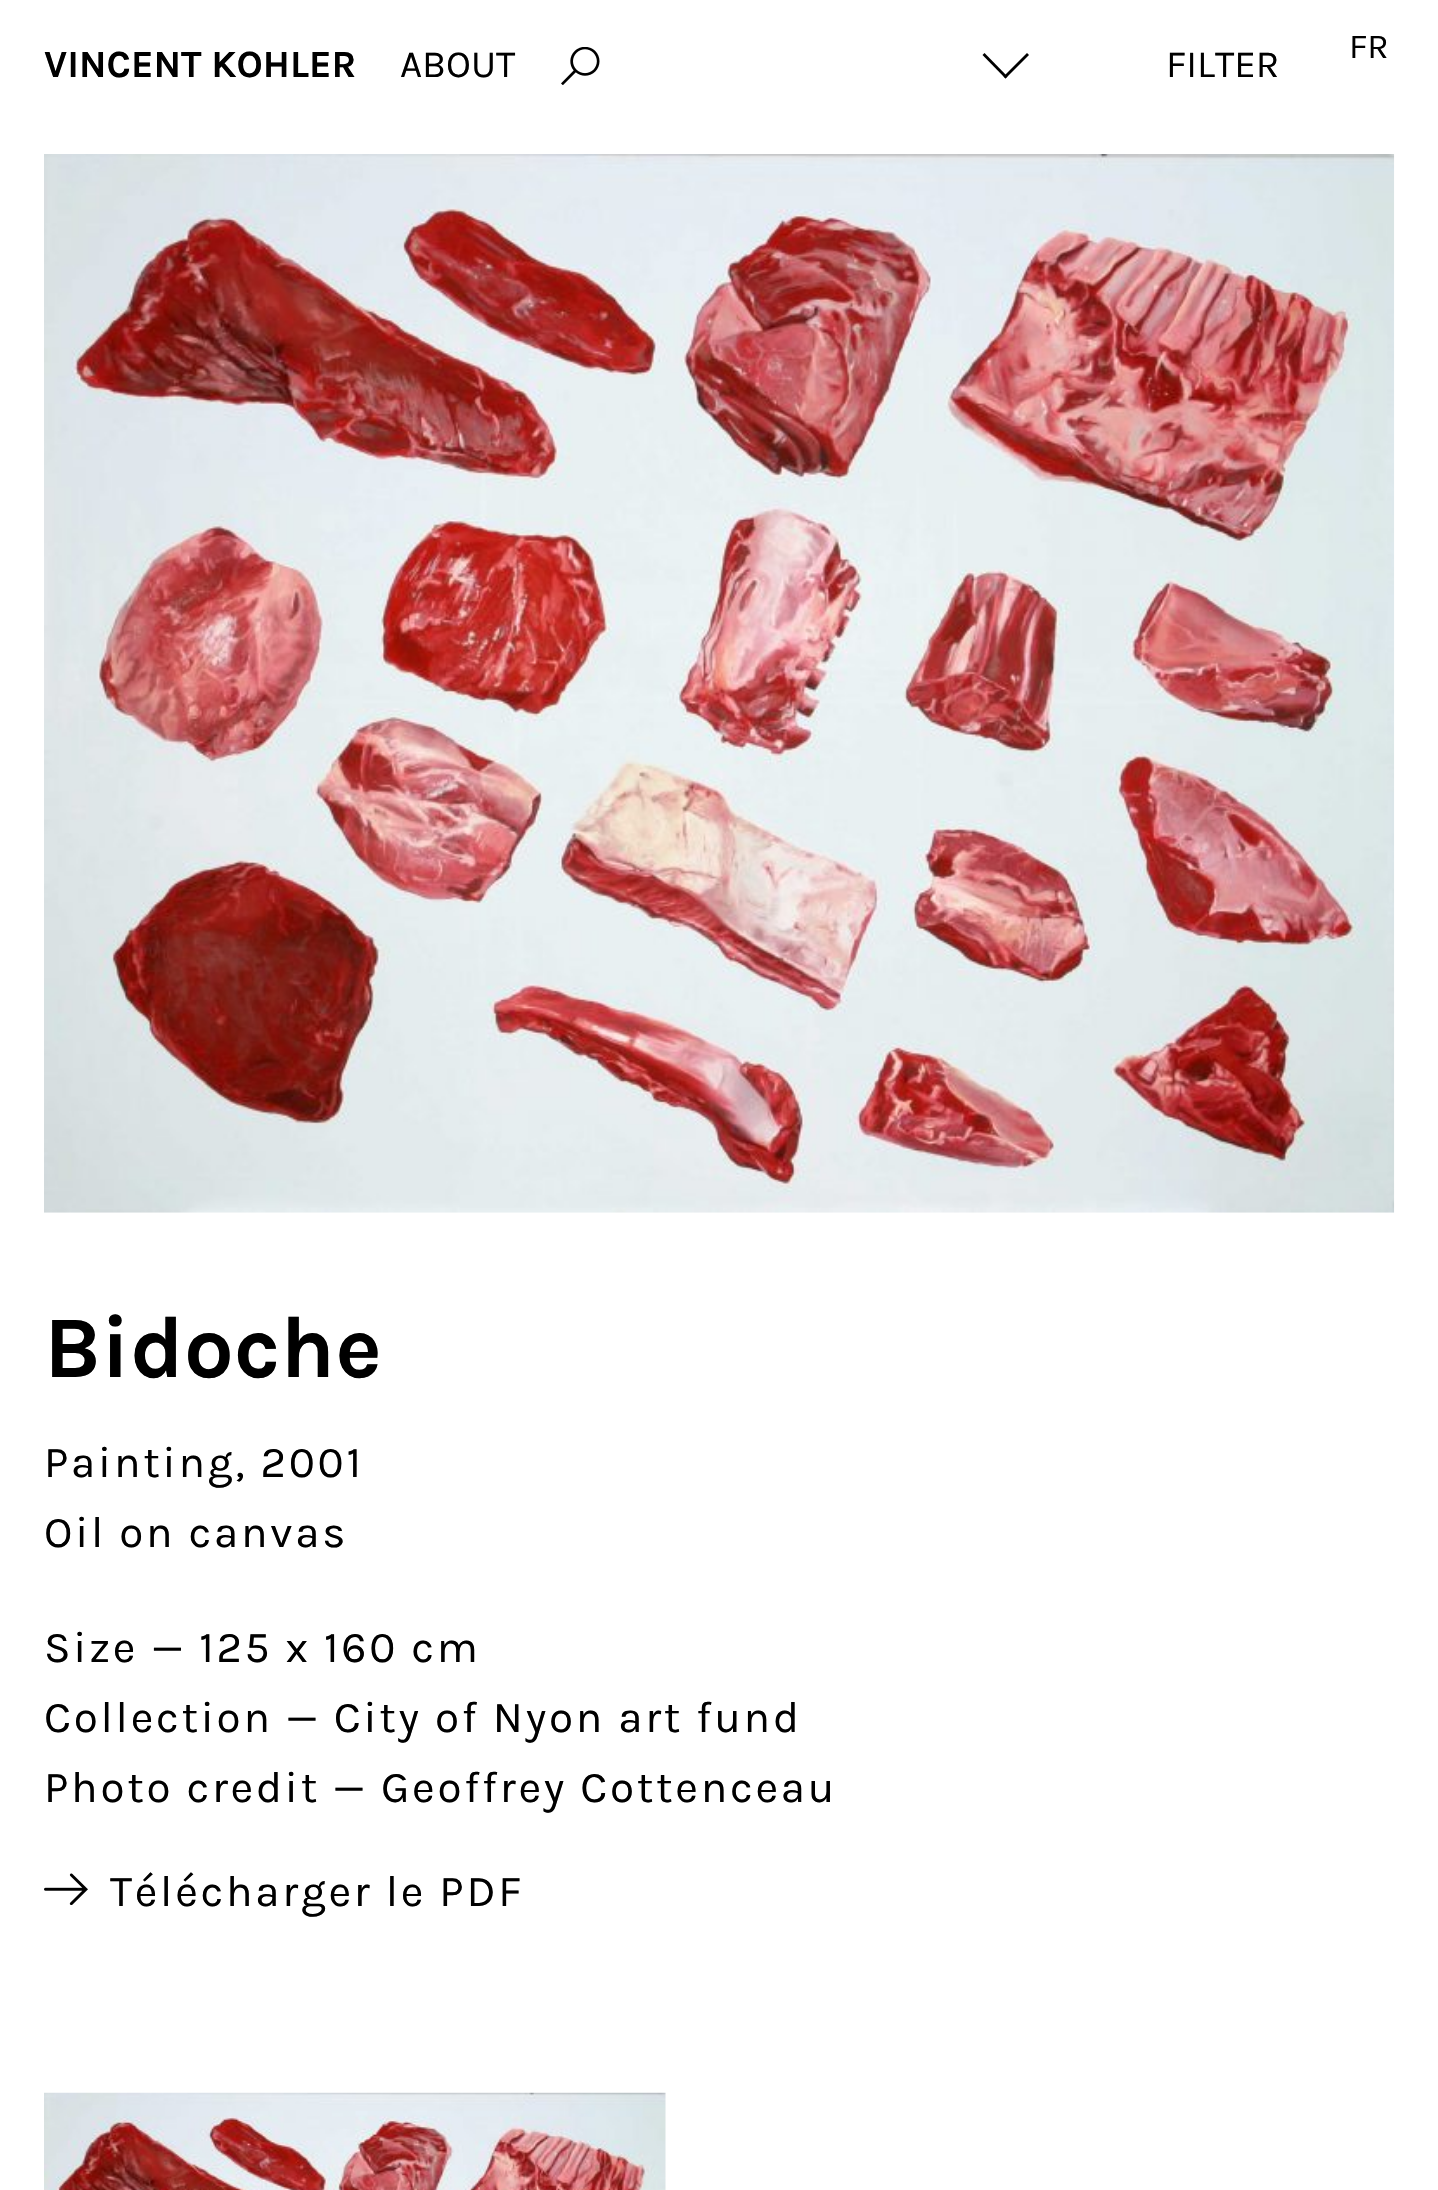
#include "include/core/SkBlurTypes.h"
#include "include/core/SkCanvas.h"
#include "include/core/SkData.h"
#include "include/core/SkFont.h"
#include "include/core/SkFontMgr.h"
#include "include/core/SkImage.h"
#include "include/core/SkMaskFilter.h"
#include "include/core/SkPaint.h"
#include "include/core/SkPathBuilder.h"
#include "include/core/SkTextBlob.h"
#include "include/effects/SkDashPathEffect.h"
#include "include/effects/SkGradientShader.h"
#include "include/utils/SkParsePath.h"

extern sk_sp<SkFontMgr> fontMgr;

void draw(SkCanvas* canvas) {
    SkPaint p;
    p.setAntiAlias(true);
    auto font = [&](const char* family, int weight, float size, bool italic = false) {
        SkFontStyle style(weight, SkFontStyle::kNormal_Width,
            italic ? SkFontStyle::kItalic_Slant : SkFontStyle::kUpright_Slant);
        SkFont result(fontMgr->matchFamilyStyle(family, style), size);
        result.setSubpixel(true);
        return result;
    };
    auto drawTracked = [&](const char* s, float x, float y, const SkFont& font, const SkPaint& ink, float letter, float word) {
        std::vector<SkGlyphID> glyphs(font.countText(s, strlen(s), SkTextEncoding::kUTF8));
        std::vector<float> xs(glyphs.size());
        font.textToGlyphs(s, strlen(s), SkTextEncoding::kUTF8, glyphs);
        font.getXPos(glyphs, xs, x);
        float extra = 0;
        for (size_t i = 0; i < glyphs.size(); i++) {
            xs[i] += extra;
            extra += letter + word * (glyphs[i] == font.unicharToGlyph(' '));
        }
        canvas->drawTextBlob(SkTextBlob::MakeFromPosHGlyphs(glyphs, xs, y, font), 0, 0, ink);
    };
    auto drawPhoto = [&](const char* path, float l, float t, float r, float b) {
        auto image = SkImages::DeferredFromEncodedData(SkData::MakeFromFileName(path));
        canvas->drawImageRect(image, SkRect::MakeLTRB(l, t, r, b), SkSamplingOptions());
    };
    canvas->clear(0xFFFFFFFF);
    auto font1 = font("Karla", 400, 35);
    p.setColor(0xFF000000);
    canvas->drawString("FR", 1349, 58, font1, p);
    auto font2 = font("Karla", 700, 38.5f);
    canvas->drawString("VINCENT KOHLER", 44, 77, font2, p);
    auto font3 = font("Karla", 400, 38.5f);
    canvas->drawString("ABOUT", 400, 77, font3, p);
    drawPhoto("media/1.png", 561, 47, 600, 85);
    canvas->drawPath(SkPathBuilder().moveTo(1027, 53).lineTo(1029, 55).lineTo(1005.5f, 78.5f).lineTo(1003.5f, 76.5f).close().detach(), p);
    canvas->drawPath(SkPathBuilder().moveTo(984.5f, 53).lineTo(1007.5f, 76.5f).lineTo(1005.5f, 78.5f).lineTo(982.5f, 55).close().detach(), p);
    canvas->drawString("FILTER", 1166, 77, font3, p);
    drawPhoto("media/2.png", 44, 154, 1395, 1213);
    auto font4 = font("Karla", 700, 88);
    canvas->drawString("Bidoche", 44, 1377, font4, p);
    auto font5 = font("Karla", 400, 44);
    {
        const struct { const char* s; float x, y; } items[] = {
            {"Painting, 2001", 44, 1477},
            {"Oil on canvas", 44, 1547},
            {"Size — 125 x 160 cm", 44, 1662},
            {"Collection — City of Nyon art fund", 44, 1732},
            {"Photo credit — Geoffrey Cottenceau", 44, 1802},
        };
        for (auto [s, x, y] : items) {
            drawTracked(s, x, y, font5, p, 2.75f, 0);
        }
    }
    drawPhoto("media/3.png", 44, 1873, 88, 1905);
    drawTracked("Télécharger le PDF", 110, 1906, font5, p, 2.75f, 0);
    drawPhoto("media/4.png", 44, 2092, 666, 2190);
}
